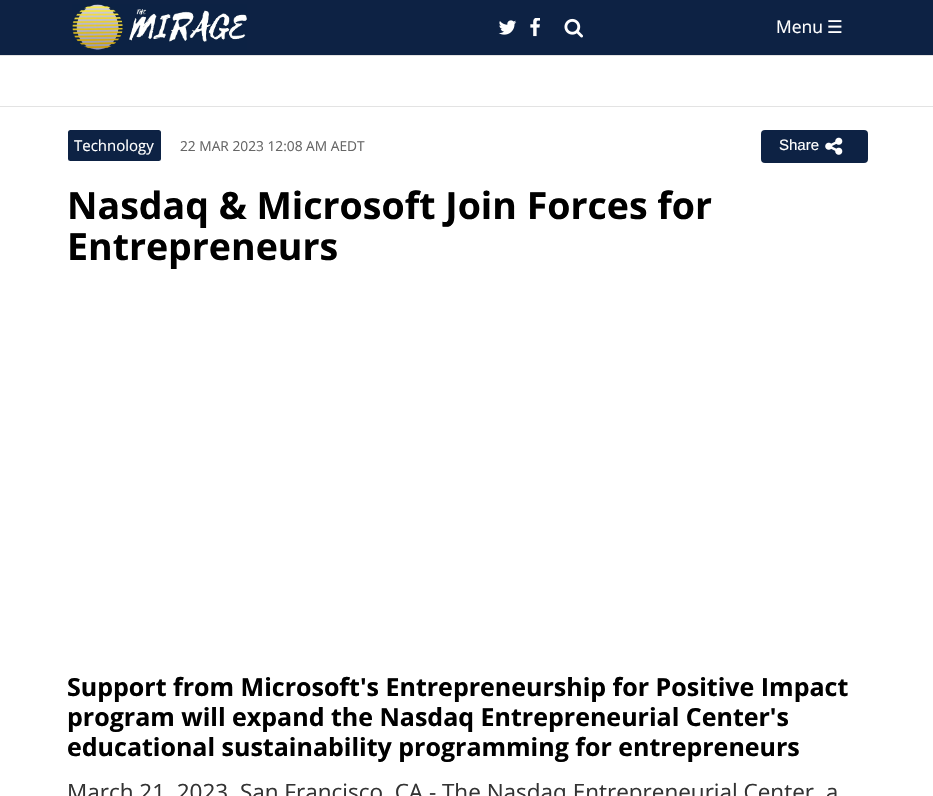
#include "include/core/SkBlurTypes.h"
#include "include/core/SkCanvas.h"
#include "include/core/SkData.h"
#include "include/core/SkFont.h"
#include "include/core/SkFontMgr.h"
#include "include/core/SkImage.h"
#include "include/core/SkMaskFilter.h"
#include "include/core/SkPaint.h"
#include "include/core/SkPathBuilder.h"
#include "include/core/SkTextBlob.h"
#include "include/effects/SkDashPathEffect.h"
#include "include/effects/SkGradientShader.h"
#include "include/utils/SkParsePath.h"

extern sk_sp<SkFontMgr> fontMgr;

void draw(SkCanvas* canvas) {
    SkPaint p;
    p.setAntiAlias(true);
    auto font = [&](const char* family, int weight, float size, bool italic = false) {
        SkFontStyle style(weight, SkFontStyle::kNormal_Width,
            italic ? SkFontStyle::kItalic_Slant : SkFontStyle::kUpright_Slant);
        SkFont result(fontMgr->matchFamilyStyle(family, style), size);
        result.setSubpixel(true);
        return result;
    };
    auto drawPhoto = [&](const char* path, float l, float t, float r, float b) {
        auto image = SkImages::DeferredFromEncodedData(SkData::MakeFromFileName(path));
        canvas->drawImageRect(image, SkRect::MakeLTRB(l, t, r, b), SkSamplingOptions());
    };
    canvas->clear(0xFFFFFFFF);
    p.setColor(0xFF0D2244);
    canvas->drawRect(SkRect::MakeLTRB(0, 0, 933, 55), p);
    drawPhoto("media/1.png", 72, 4, 247, 50);
    drawPhoto("media/2.png", 498, 20, 517, 35);
    drawPhoto("media/3.png", 530, 18, 540, 37);
    drawPhoto("media/4.png", 564, 18, 583, 38);
    auto font1 = font("Open Sans", 400, 17.5f);
    p.setColor(0xFFFFFFFF);
    canvas->drawString("Menu", 776, 33, font1, p);
    auto font2 = font("DejaVu Sans", 400, 17.5f);
    canvas->drawString("☰", 827, 33, font2, p);
    p.setColor(0xFFE3E3E3);
    canvas->drawRect(SkRect::MakeLTRB(0, 55, 933, 56), p);
    canvas->drawRect(SkRect::MakeLTRB(0, 106, 933, 107), p);
    p.setColor(0xFF0D2244);
    canvas->drawRoundRect(SkRect::MakeLTRB(68, 130, 161, 161), 2.5f, 2.5f, p);
    auto font3 = font("Open Sans", 400, 15);
    p.setColor(0xFFFFFFFF);
    canvas->drawString("Technology", 74, 151, font3, p);
    auto font4 = font("Open Sans", 400, 13.75f);
    p.setColor(0xFF666666);
    canvas->drawString("22 MAR 2023 12:08 AM AEDT", 180, 151, font4, p);
    p.setColor(0xFF0D2244);
    canvas->drawRoundRect(SkRect::MakeLTRB(761, 130, 868, 163), 4, 4, p);
    auto font5 = font("Liberation Sans", 400, 15);
    p.setColor(0xFFFFFFFF);
    canvas->drawString("Share", 779, 150, font5, p);
    drawPhoto("media/5.png", 825, 137, 843, 155);
    auto font6 = font("Open Sans", 700, 37.5f);
    p.setColor(0xFF000000);
    canvas->drawString("Nasdaq & Microsoft Join Forces for", 67, 219, font6, p);
    canvas->drawString("Entrepreneurs", 67, 260, font6, p);
    auto font7 = font("Open Sans", 700, 25);
    {
        const struct { const char* s; float x, y; } items[] = {
            {"Support from Microsoft's Entrepreneurship for Positive Impact", 67, 696},
            {"program will expand the Nasdaq Entrepreneurial Center's", 67, 726},
            {"educational sustainability programming for entrepreneurs", 67, 756},
        };
        for (auto [s, x, y] : items) {
            canvas->drawString(s, x, y, font7, p);
        }
    }
    auto font8 = font("Open Sans", 400, 22.5f);
    p.setColor(0xFF333333);
    canvas->drawString("March 21, 2023, San Francisco, CA - The Nasdaq Entrepreneurial Center, a", 67, 800, font8, p);
}
